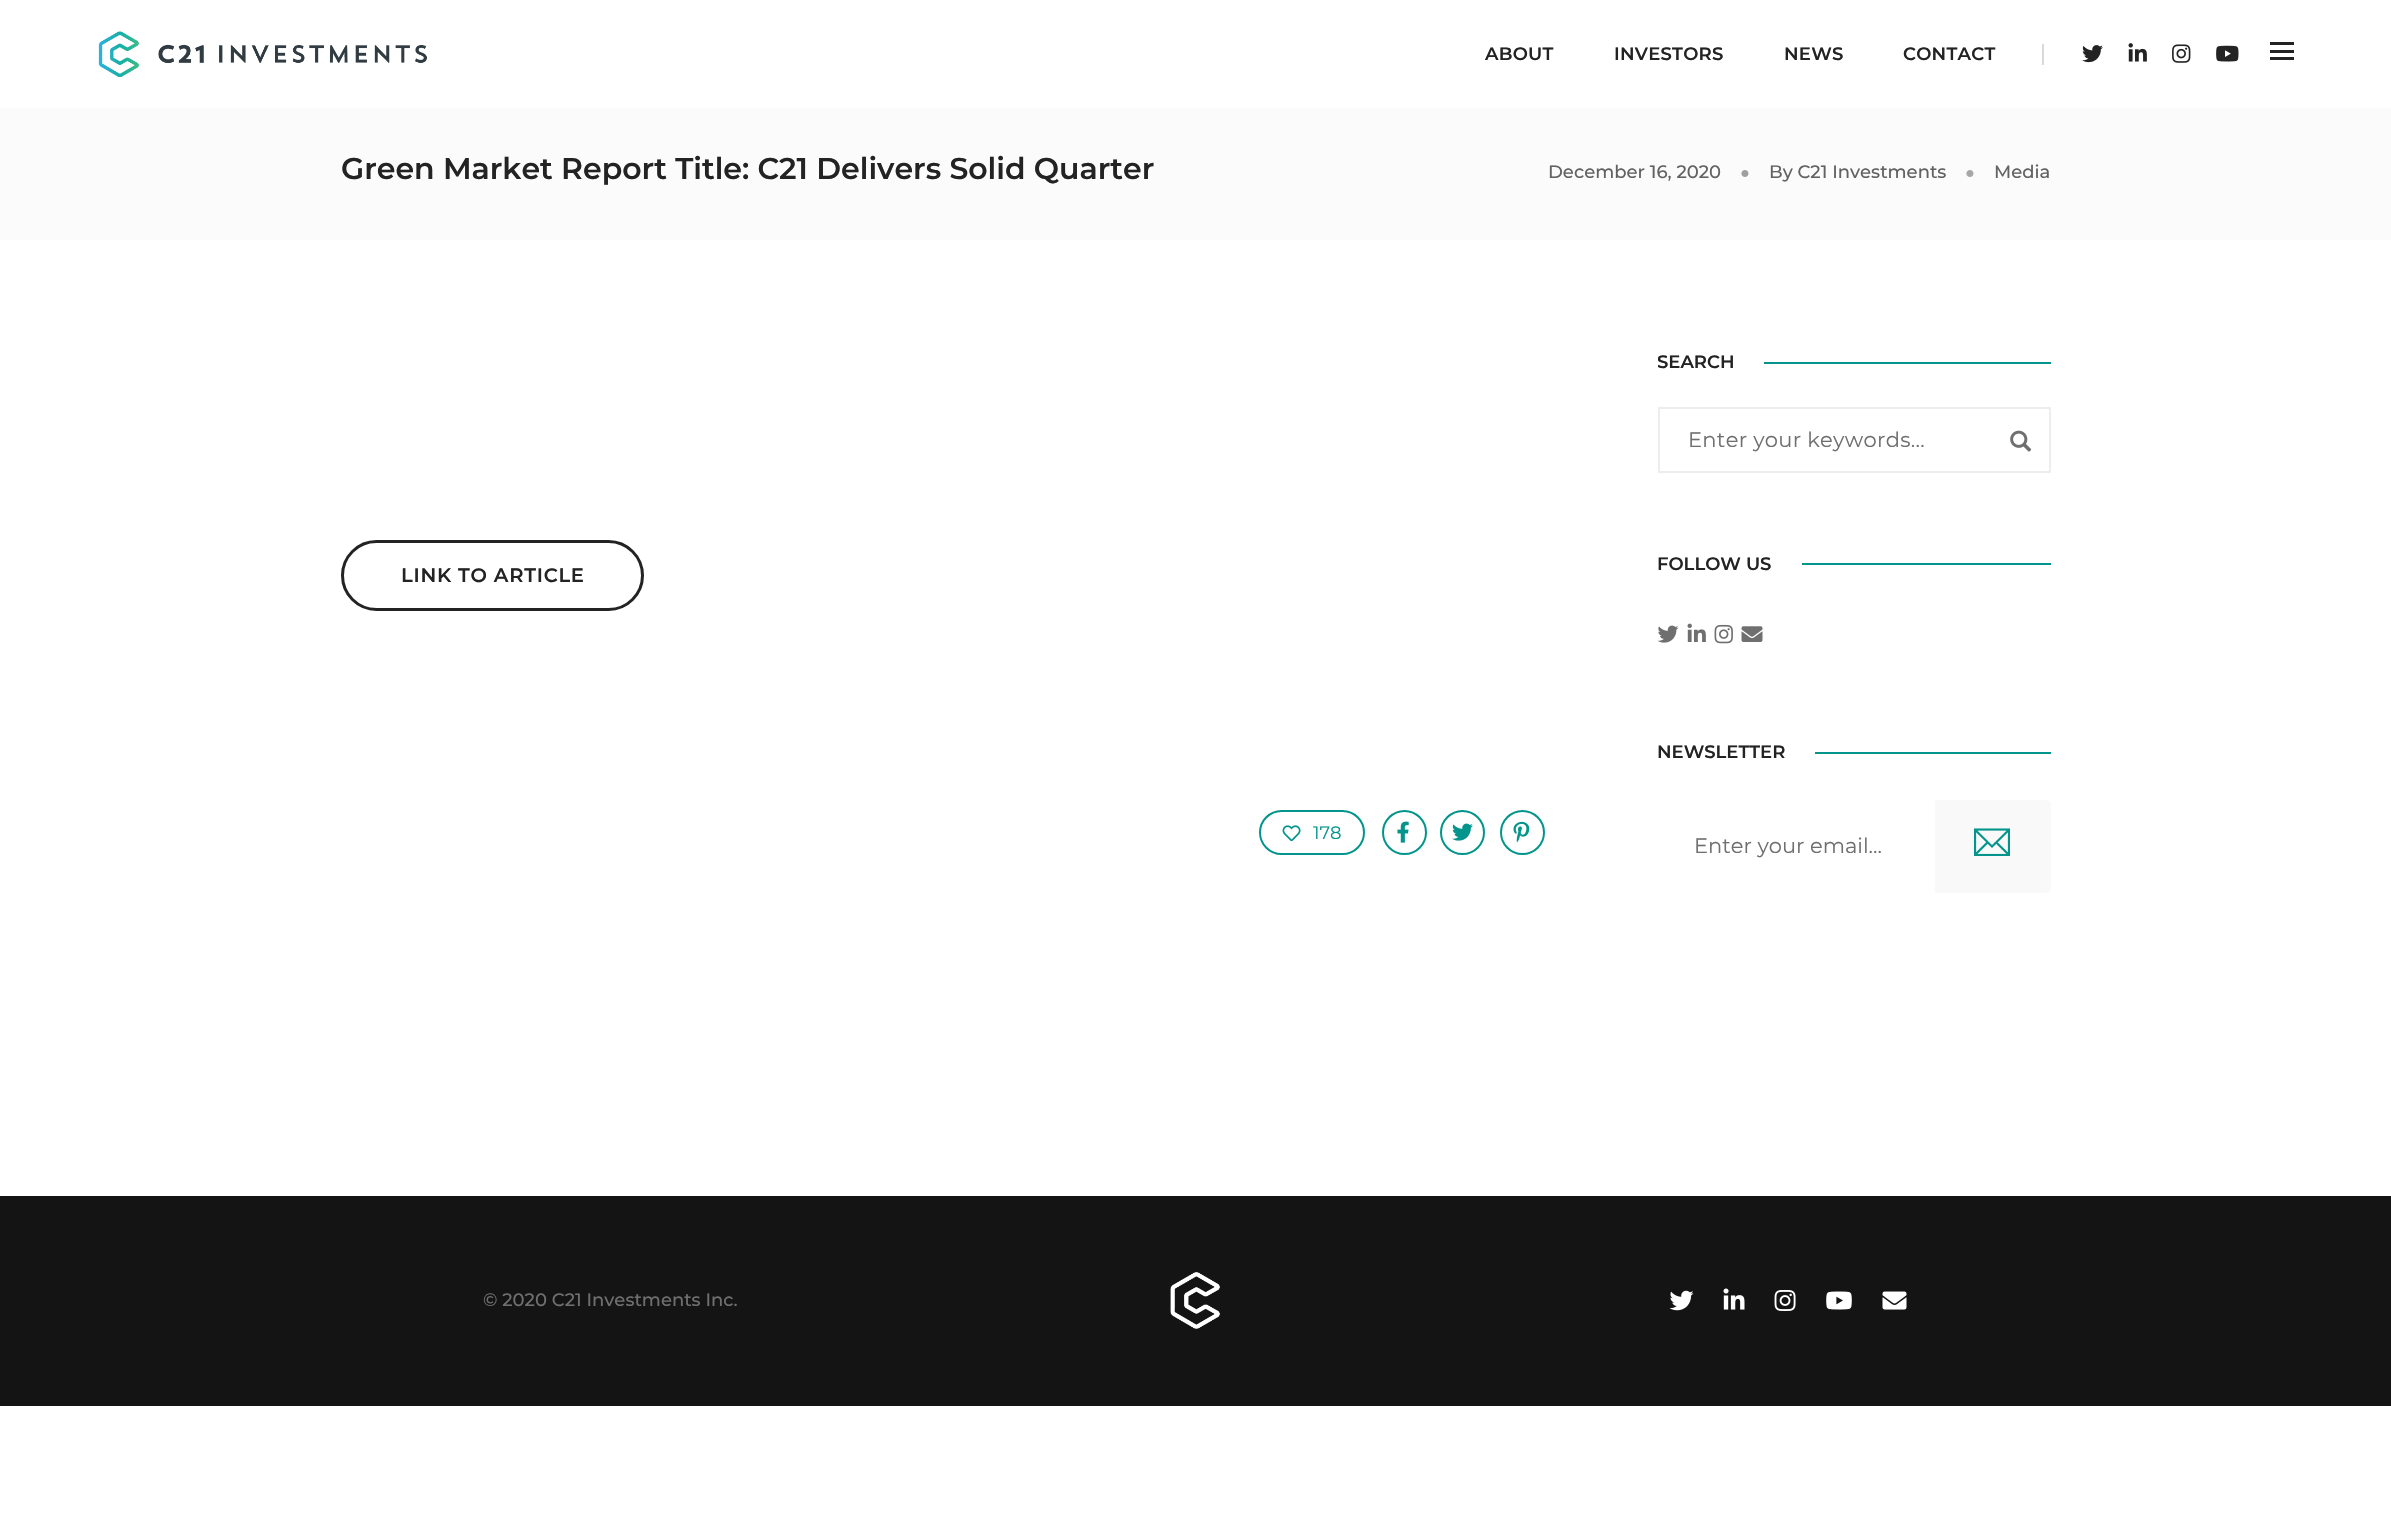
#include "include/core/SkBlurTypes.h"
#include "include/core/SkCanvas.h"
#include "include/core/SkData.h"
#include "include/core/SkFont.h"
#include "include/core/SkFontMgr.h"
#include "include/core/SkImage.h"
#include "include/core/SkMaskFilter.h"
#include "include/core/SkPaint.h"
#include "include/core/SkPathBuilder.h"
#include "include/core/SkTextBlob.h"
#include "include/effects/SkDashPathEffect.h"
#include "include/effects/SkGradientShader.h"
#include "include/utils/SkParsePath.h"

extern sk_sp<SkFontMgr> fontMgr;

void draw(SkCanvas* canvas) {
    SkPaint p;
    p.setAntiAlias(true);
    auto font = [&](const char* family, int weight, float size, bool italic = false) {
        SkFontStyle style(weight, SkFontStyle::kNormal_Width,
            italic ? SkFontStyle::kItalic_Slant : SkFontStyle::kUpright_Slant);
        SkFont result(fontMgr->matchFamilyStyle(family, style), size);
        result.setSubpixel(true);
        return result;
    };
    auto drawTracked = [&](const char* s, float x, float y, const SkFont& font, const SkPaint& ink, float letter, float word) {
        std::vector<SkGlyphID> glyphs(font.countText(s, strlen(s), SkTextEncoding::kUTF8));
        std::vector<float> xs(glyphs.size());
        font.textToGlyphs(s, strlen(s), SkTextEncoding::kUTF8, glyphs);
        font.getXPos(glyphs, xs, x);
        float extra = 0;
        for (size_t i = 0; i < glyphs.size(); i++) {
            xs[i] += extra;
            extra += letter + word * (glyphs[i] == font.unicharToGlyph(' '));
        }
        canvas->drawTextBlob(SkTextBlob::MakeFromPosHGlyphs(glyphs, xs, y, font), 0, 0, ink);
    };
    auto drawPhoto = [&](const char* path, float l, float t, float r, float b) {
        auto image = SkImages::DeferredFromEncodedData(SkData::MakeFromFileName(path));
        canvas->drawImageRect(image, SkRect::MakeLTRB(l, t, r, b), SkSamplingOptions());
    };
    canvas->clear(0xFFFFFFFF);
    drawPhoto("media/1.png", 98, 31, 427, 77);
    auto font1 = font("Montserrat", 600, 18);
    p.setColor(0xFF232323);
    {
        const struct { const char* s; float x, y; } items[] = {
            {"ABOUT", 1485, 60},
            {"INVESTORS", 1614, 60},
            {"NEWS", 1784, 60},
            {"CONTACT", 1903, 60},
        };
        for (auto [s, x, y] : items) {
            drawTracked(s, x, y, font1, p, 0.25f, 0);
        }
    }
    p.setColor(0xFFD9D9D9);
    canvas->drawRect(SkRect::MakeLTRB(2042, 44, 2044, 65), p);
    drawPhoto("media/2.png", 2082, 45, 2103, 63);
    drawPhoto("media/3.png", 2128, 43, 2147, 62);
    drawPhoto("media/4.png", 2172, 44, 2191, 63);
    drawPhoto("media/5.png", 2216, 45, 2239, 62);
    {
        const struct { float l, t, r, b; SkColor color; } items[] = {
            {2270, 42, 2294, 45, 0xFF232323},
            {2270, 50, 2294, 53, 0xFF232323},
            {2270, 57, 2294, 60, 0xFF232323},
            {0, 108, 2391, 240, 0xFFFBFBFB},
        };
        for (auto [l, t, r, b, color] : items) {
            p.setColor(color);
            canvas->drawRect(SkRect::MakeLTRB(l, t, r, b), p);
        }
    }
    auto font2 = font("Montserrat", 600, 30);
    p.setColor(0xFF232323);
    canvas->drawString("Green Market Report Title: C21 Delivers Solid Quarter", 341, 179, font2, p);
    auto font3 = font("Montserrat", 500, 18);
    p.setColor(0xFF626262);
    canvas->drawString("December 16, 2020", 1548, 178, font3, p);
    auto font4 = font("Montserrat", 500, 38);
    p.setColor(0xFF9F9F9F);
    canvas->drawString("•", 1739, 184, font4, p);
    p.setColor(0xFF626262);
    canvas->drawString("By C21 Investments", 1769, 178, font3, p);
    p.setColor(0xFFA7A7A7);
    canvas->drawString("•", 1964, 184, font4, p);
    p.setColor(0xFF626262);
    canvas->drawString("Media", 1994, 178, font3, p);
    p.setStyle(SkPaint::kStroke_Style);
    p.setStrokeWidth(3);
    p.setColor(0xFF232323);
    canvas->drawRoundRect(SkRect::MakeLTRB(342.5f, 541.5f, 642.5f, 609.5f), 34, 34, p);
    auto font5 = font("Montserrat", 600, 19.5f);
    p.setStyle(SkPaint::kFill_Style);
    drawTracked("LINK TO ARTICLE", 401, 582, font5, p, 0.75f, 0);
    p.setStyle(SkPaint::kStroke_Style);
    p.setStrokeWidth(2);
    p.setColor(0xFF03958C);
    canvas->drawRoundRect(SkRect::MakeLTRB(1260, 811, 1364, 854), 21.5f, 21.5f, p);
    drawPhoto("media/6.png", 1282, 825, 1301, 842);
    auto font6 = font("Montserrat", 400, 18);
    p.setStyle(SkPaint::kFill_Style);
    canvas->drawString("178", 1313, 839, font6, p);
    p.setStyle(SkPaint::kStroke_Style);
    canvas->drawCircle(1404.5f, 832.5f, 21.5f, p);
    drawPhoto("media/7.png", 1397, 821, 1409, 843);
    canvas->drawCircle(1462.5f, 832.5f, 21.5f, p);
    drawPhoto("media/8.png", 1452, 823, 1473, 841);
    canvas->drawCircle(1522.5f, 832.5f, 21.5f, p);
    drawPhoto("media/9.png", 1513, 821, 1530, 843);
    canvas->save();
    canvas->clipRect(SkRect::MakeLTRB(1658, 345, 2051, 377));
    p.setStyle(SkPaint::kFill_Style);
    p.setColor(0xFF232323);
    canvas->drawString("SEARCH", 1657, 368, font1, p);
    canvas->restore();
    p.setColor(0xFF03958C);
    canvas->drawRect(SkRect::MakeLTRB(1764, 362, 2051, 364), p);
    p.setStyle(SkPaint::kStroke_Style);
    p.setColor(0xFFEDEDED);
    canvas->drawRect(SkRect::MakeLTRB(1659, 408, 2050, 472), p);
    auto font7 = font("Montserrat", 400, 21);
    p.setStyle(SkPaint::kFill_Style);
    p.setColor(0xFF6F6F6F);
    drawTracked("Enter your keywords...", 1688, 447, font7, p, 0.3f, 0);
    drawPhoto("media/10.png", 2010, 430, 2032, 452);
    p.setColor(0xFF232323);
    canvas->drawString("FOLLOW US", 1657, 570, font1, p);
    p.setColor(0xFF03958C);
    canvas->drawRect(SkRect::MakeLTRB(1802, 563, 2051, 565), p);
    drawPhoto("media/11.png", 1657, 625, 1679, 643);
    drawPhoto("media/12.png", 1687, 623, 1706, 642);
    drawPhoto("media/13.png", 1714, 624, 1733, 644);
    drawPhoto("media/14.png", 1741, 626, 1763, 642);
    p.setColor(0xFF232323);
    canvas->drawString("NEWSLETTER", 1657, 758, font1, p);
    p.setColor(0xFF03958C);
    canvas->drawRect(SkRect::MakeLTRB(1815, 752, 2051, 754), p);
    p.setColor(0xFFF9F9F9);
    canvas->drawPath(SkPathBuilder().moveTo(1934, 800).lineTo(2045, 800).cubicTo(2048.5f, 800, 2051, 802.5f, 2051, 806).lineTo(2051, 887).cubicTo(2051, 890.5f, 2048.5f, 893, 2045, 893).lineTo(1934, 893).close().detach(), p);
    p.setColor(0xFFFFFFFF);
    canvas->drawPath(SkPathBuilder().moveTo(1664, 798).lineTo(1935, 798).lineTo(1935, 896).lineTo(1664, 896).cubicTo(1660.5f, 896, 1658, 893.5f, 1658, 890).lineTo(1658, 804).cubicTo(1658, 800.5f, 1660.5f, 798, 1664, 798).close().detach(), p);
    p.setColor(0xFF6F6F6F);
    canvas->drawString("Enter your email...", 1694, 853, font7, p);
    drawPhoto("media/15.png", 1974, 828, 2010, 856);
    p.setColor(0xFF141414);
    canvas->drawRect(SkRect::MakeLTRB(0, 1196, 2391, 1406), p);
    p.setColor(0xFF6F6F6F);
    canvas->drawString("© 2020 C21 Investments Inc.", 483, 1306, font3, p);
    drawPhoto("media/16.png", 1170, 1272, 1220, 1329);
    drawPhoto("media/17.png", 1669, 1290, 1694, 1311);
    drawPhoto("media/18.png", 1723, 1288, 1745, 1310);
    drawPhoto("media/19.png", 1774, 1290, 1796, 1311);
    drawPhoto("media/20.png", 1826, 1291, 1852, 1310);
    drawPhoto("media/21.png", 1882, 1291, 1907, 1310);
}
